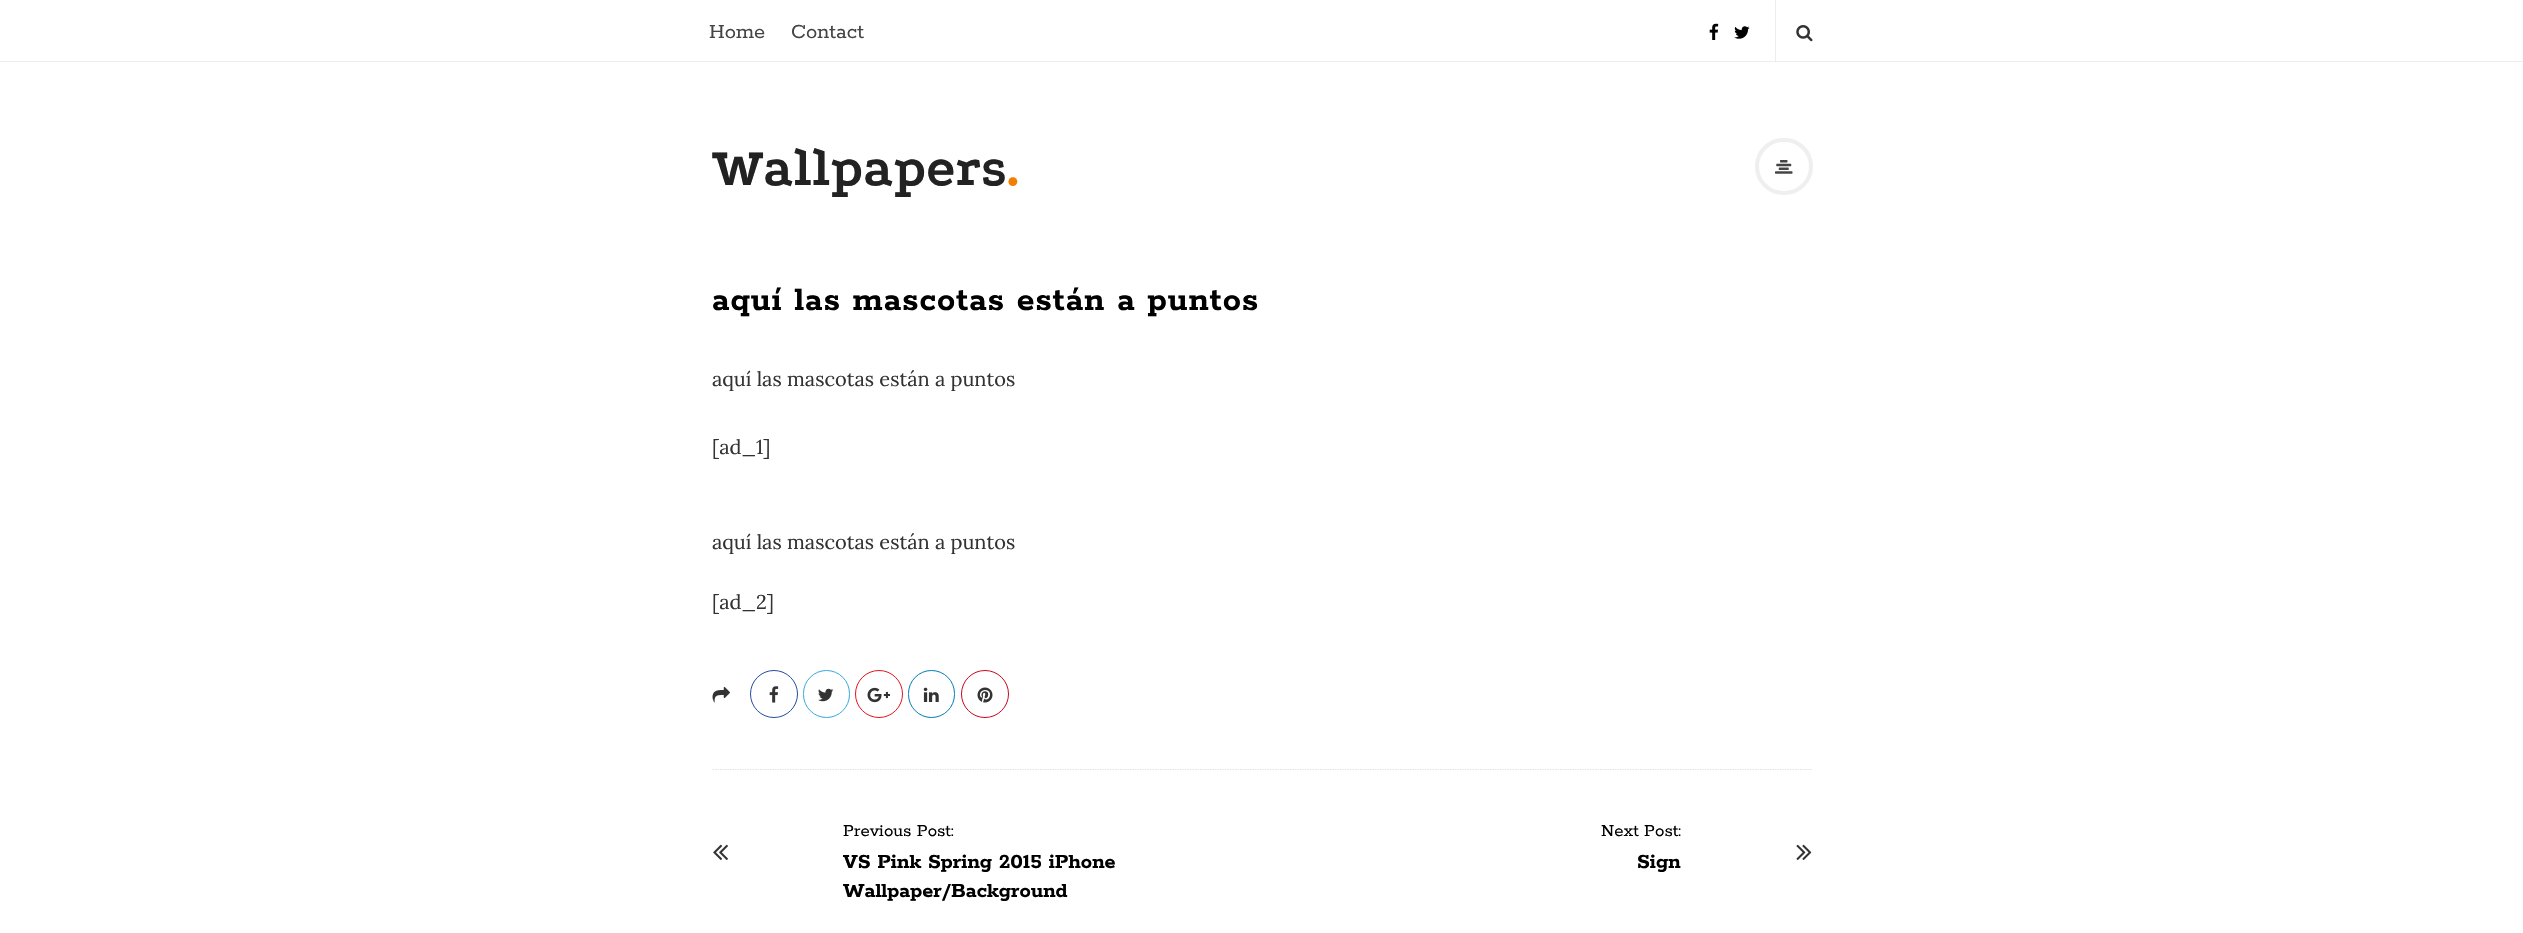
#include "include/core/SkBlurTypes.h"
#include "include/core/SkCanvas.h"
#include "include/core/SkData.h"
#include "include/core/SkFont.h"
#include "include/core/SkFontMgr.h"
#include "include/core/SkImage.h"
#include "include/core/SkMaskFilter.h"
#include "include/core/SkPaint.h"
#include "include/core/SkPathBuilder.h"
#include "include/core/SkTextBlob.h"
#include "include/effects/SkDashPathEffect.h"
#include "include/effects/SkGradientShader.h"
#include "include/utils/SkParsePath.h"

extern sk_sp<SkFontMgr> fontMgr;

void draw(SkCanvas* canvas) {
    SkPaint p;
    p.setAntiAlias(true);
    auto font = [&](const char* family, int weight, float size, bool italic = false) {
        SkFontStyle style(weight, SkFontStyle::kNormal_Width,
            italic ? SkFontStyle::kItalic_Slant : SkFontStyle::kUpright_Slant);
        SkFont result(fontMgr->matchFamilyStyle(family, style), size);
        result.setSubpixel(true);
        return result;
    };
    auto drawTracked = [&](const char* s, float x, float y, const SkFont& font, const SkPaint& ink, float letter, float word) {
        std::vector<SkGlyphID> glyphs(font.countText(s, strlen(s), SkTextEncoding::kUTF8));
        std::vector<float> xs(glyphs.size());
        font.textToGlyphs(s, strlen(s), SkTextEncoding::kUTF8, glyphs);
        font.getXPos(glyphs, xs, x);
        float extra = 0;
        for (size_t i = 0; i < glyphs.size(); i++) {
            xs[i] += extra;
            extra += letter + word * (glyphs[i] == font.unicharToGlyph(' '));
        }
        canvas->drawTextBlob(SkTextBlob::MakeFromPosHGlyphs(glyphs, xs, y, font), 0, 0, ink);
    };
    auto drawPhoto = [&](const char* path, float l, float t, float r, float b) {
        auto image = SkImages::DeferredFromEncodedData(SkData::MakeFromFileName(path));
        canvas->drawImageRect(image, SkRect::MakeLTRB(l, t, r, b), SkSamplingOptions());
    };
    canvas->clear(0xFFFFFFFF);
    p.setColor(0xFFEDEDED);
    canvas->drawRect(SkRect::MakeLTRB(0, 61, 2523, 62), p);
    auto font1 = font("Rokkitt", 400, 22.5f);
    p.setColor(0xFF444444);
    canvas->drawString("Home", 709, 38, font1, p);
    canvas->drawString("Contact", 791, 38, font1, p);
    drawPhoto("media/1.png", 1709, 23, 1719, 40);
    drawPhoto("media/2.png", 1734, 26, 1750, 39);
    p.setColor(0xFFEDEDED);
    canvas->drawRect(SkRect::MakeLTRB(1775, 0, 1776, 61), p);
    drawPhoto("media/3.png", 1796, 25, 1813, 42);
    auto font2 = font("Podkova", 700, 55);
    p.setColor(0xFF222222);
    canvas->drawString("Wallpapers", 712, 185, font2, p);
    p.setColor(0xFFF47E00);
    canvas->drawString(".", 1006, 185, font2, p);
    p.setStyle(SkPaint::kStroke_Style);
    p.setStrokeWidth(4);
    p.setColor(0xFFEFEFEF);
    canvas->drawRoundRect(SkRect::MakeLTRB(1757, 140, 1811, 193), 26.5f, 26.5f, p);
    drawPhoto("media/4.png", 1775, 160, 1793, 174);
    p.setStrokeWidth(1.2f);
    p.setColor(0xFFDDDDDD);
    p.setPathEffect(SkDashPathEffect::Make({{1.25f, 1.25f}}, 0));
    canvas->drawPath(SkPathBuilder().moveTo(712.5f, 769.5f).lineTo(1812.5f, 769.5f).detach(), p);
    p.setPathEffect(nullptr);
    auto font3 = font("Rokkitt", 700, 36.25f);
    p.setStyle(SkPaint::kFill_Style);
    p.setColor(0xFF000000);
    drawTracked("aquí las mascotas están a puntos", 712, 310, font3, p, 1, 0);
    auto font4 = font("Lora", 400, 20);
    p.setColor(0xFF333333);
    {
        const struct { const char* s; float x, y; } items[] = {
            {"aquí las mascotas están a puntos", 712, 386},
            {"[ad_1]", 712, 454},
            {"aquí las mascotas están a puntos", 712, 549},
            {"[ad_2]", 712, 609},
        };
        for (auto [s, x, y] : items) {
            canvas->drawString(s, x, y, font4, p);
        }
    }
    drawPhoto("media/5.png", 712, 686, 730, 703);
    p.setStyle(SkPaint::kStroke_Style);
    p.setStrokeWidth(1);
    p.setColor(0xFF234E9A);
    canvas->drawCircle(774, 694, 23.5f, p);
    drawPhoto("media/6.png", 769, 686, 779, 703);
    p.setColor(0xFF32AADC);
    canvas->drawRoundRect(SkRect::MakeLTRB(803.5f, 670.5f, 849.5f, 717.5f), 23, 23, p);
    drawPhoto("media/7.png", 818, 688, 834, 702);
    p.setColor(0xFFE2131E);
    canvas->drawCircle(879, 694, 23.5f, p);
    drawPhoto("media/8.png", 867, 687, 890, 703);
    p.setColor(0xFF007BB5);
    canvas->drawRoundRect(SkRect::MakeLTRB(908.5f, 670.5f, 954.5f, 717.5f), 23, 23, p);
    drawPhoto("media/9.png", 923, 687, 939, 702);
    p.setColor(0xFFC8071D);
    canvas->drawCircle(985, 694, 23.5f, p);
    drawPhoto("media/10.png", 977, 687, 993, 703);
    drawPhoto("media/11.png", 713, 844, 728, 860);
    auto font5 = font("Rokkitt", 400, 18.75f);
    p.setStyle(SkPaint::kFill_Style);
    p.setColor(0xFF000000);
    canvas->drawString("Previous Post:", 843, 836, font5, p);
    auto font6 = font("Rokkitt", 700, 22.5f);
    canvas->drawString("VS Pink Spring 2015 iPhone", 843, 868, font6, p);
    canvas->drawString("Wallpaper/Background", 843, 897, font6, p);
    canvas->drawString("Next Post:", 1601, 836, font5, p);
    canvas->drawString("Sign", 1637, 868, font6, p);
    drawPhoto("media/12.png", 1796, 844, 1812, 860);
}
